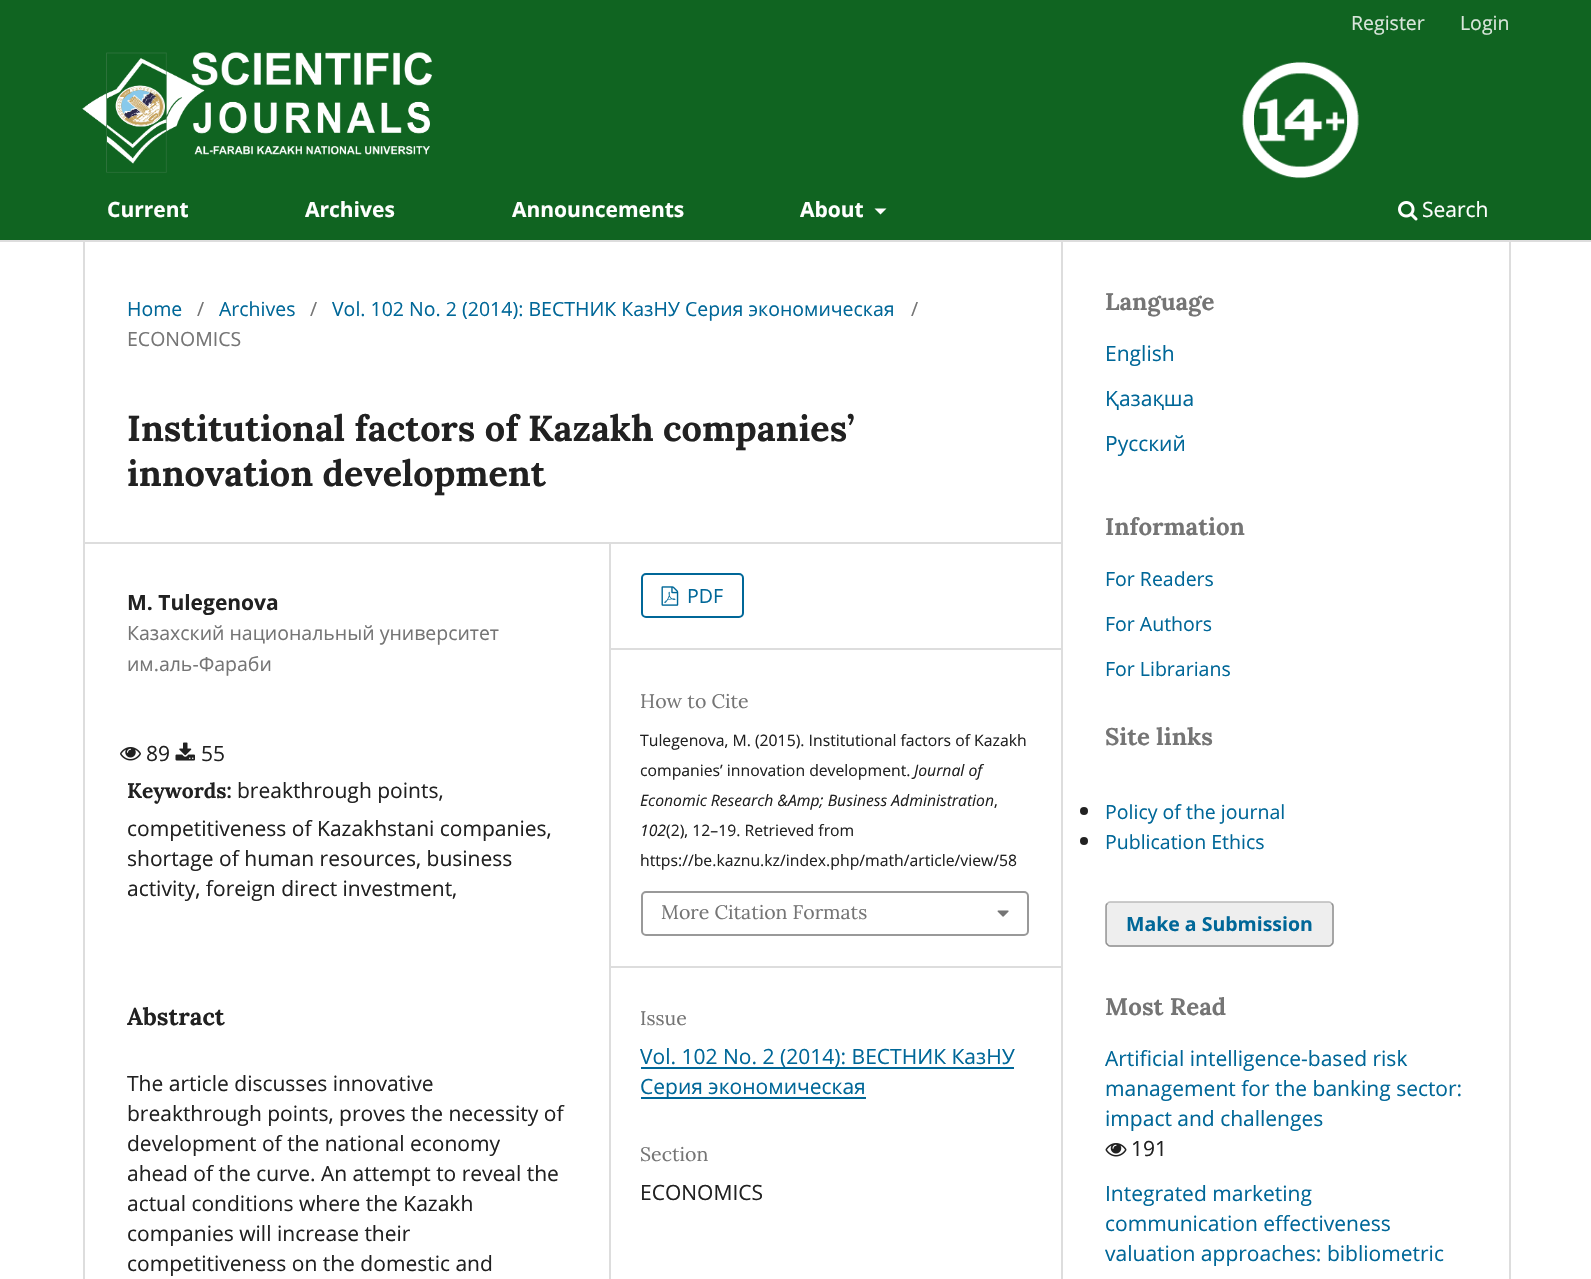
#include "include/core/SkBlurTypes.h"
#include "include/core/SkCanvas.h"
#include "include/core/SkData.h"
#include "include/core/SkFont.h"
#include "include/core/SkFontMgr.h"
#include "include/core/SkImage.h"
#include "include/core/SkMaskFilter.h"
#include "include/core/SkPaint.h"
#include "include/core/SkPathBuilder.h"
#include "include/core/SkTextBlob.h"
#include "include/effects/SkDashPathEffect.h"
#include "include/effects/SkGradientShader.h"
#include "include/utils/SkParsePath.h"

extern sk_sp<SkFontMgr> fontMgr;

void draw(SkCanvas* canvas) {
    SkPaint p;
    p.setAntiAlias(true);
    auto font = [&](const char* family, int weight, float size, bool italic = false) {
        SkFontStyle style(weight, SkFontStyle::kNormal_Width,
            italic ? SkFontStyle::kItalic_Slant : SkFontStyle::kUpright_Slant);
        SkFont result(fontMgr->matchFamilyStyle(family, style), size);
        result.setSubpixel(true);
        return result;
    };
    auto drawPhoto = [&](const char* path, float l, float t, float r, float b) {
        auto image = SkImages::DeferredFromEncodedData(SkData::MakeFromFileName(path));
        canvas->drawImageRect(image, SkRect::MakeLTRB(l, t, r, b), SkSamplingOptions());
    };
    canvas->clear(0xFFFFFFFF);
    p.setColor(0xFF106421);
    canvas->drawRect(SkRect::MakeLTRB(0, 0, 1591, 240), p);
    p.setColor(0xFFDDDDDD);
    canvas->drawRect(SkRect::MakeLTRB(0, 240, 1591, 242), p);
    auto font1 = font("Open Sans", 400, 19.5f);
    p.setColor(0xFFD9E6DB);
    canvas->drawString("Register", 1351, 30, font1, p);
    canvas->drawString("Login", 1460, 30, font1, p);
    auto font2 = font("Open Sans", 700, 21);
    p.setColor(0xFFFFFFFF);
    {
        const struct { const char* s; float x, y; } items[] = {
            {"Current", 107, 217},
            {"Archives", 305, 217},
            {"Announcements", 512, 217},
            {"About", 800, 217},
        };
        for (auto [s, x, y] : items) {
            canvas->drawString(s, x, y, font2, p);
        }
    }
    canvas->drawPath(SkPathBuilder().moveTo(874.5f, 208.5f).lineTo(886.5f, 208.5f).lineTo(880.5f, 214.5f).close().detach(), p);
    drawPhoto("media/1.png", 1398, 201, 1418, 221);
    auto font3 = font("Open Sans", 400, 21);
    canvas->drawString("Search", 1422, 217, font3, p);
    drawPhoto("media/2.png", 82, 52, 432, 173);
    drawPhoto("media/3.png", 1242, 61, 1359, 179);
    p.setColor(0xFFDDDDDD);
    canvas->drawRect(SkRect::MakeLTRB(83, 542, 1061, 544), p);
    canvas->drawRect(SkRect::MakeLTRB(83, 242, 85, 1279), p);
    p.setColor(0xFF006798);
    canvas->drawString("Home", 127, 316, font1, p);
    p.setColor(0xFF757575);
    canvas->drawString("/", 197, 316, font1, p);
    p.setColor(0xFF006798);
    canvas->drawString("Archives", 219, 316, font1, p);
    p.setColor(0xFF757575);
    canvas->drawString("/", 310, 316, font1, p);
    p.setColor(0xFF006798);
    canvas->drawString("Vol. 102 No. 2 (2014): ВЕСТНИК КазНУ Серия экономическая", 332, 316, font1, p);
    p.setColor(0xFF757575);
    canvas->drawString("/", 911, 316, font1, p);
    canvas->drawString("ECONOMICS", 127, 346, font1, p);
    auto font4 = font("Lora", 700, 36);
    p.setColor(0xFF212121);
    canvas->drawString("Institutional factors of Kazakh companies’", 127, 441, font4, p);
    canvas->drawString("innovation development", 127, 486, font4, p);
    p.setColor(0xFFDDDDDD);
    canvas->drawRect(SkRect::MakeLTRB(609, 543, 611, 1279), p);
    p.setColor(0xFF212121);
    canvas->drawString("M. Tulegenova", 127, 610, font2, p);
    p.setColor(0xFF757575);
    canvas->drawString("Казахский национальный университет", 127, 640, font1, p);
    canvas->drawString("им.аль-Фараби", 127, 671, font1, p);
    drawPhoto("media/4.png", 120, 747, 141, 761);
    p.setColor(0xFF212121);
    canvas->drawString("89", 146, 761, font3, p);
    drawPhoto("media/5.png", 175, 742, 195, 761);
    canvas->drawString("55", 201, 761, font3, p);
    auto font5 = font("Lora", 700, 21);
    canvas->drawString("Keywords:", 127, 798, font5, p);
    {
        const struct { const char* s; float x, y; } items[] = {
            {"breakthrough points,", 237, 798},
            {"competitiveness of Kazakhstani companies,", 127, 836},
            {"shortage of human resources, business", 127, 866},
            {"activity, foreign direct investment,", 127, 896},
        };
        for (auto [s, x, y] : items) {
            canvas->drawString(s, x, y, font3, p);
        }
    }
    auto font6 = font("Lora", 700, 24);
    canvas->drawString("Abstract", 127, 1025, font6, p);
    {
        const struct { const char* s; float x, y; } items[] = {
            {"The article discusses innovative", 127, 1091},
            {"breakthrough points, proves the necessity of", 127, 1121},
            {"development of the national economy", 127, 1151},
            {"ahead of the curve. An attempt to reveal the", 127, 1181},
            {"actual conditions where the Kazakh", 127, 1211},
            {"companies will increase their", 127, 1241},
            {"competitiveness on the domestic and", 127, 1271},
        };
        for (auto [s, x, y] : items) {
            canvas->drawString(s, x, y, font3, p);
        }
    }
    p.setColor(0xFFDDDDDD);
    canvas->drawRect(SkRect::MakeLTRB(611, 648, 1061, 650), p);
    p.setStyle(SkPaint::kStroke_Style);
    p.setStrokeWidth(2);
    p.setColor(0xFF006798);
    canvas->drawRoundRect(SkRect::MakeLTRB(642, 574, 743, 617), 4, 4, p);
    drawPhoto("media/6.png", 661, 586, 679, 606);
    p.setStyle(SkPaint::kFill_Style);
    canvas->drawString("PDF", 687, 603, font1, p);
    p.setColor(0xFFDDDDDD);
    canvas->drawRect(SkRect::MakeLTRB(611, 966, 1061, 968), p);
    auto font7 = font("Lora", 400, 19.5f);
    p.setColor(0xFF757575);
    canvas->drawString("How to Cite", 640, 708, font7, p);
    auto font8 = font("Open Sans", 400, 15.75f);
    p.setColor(0xFF212121);
    canvas->drawString("Tulegenova, M. (2015). Institutional factors of Kazakh", 640, 746, font8, p);
    canvas->drawString("companies’ innovation development.", 640, 776, font8, p);
    auto font9 = font("Open Sans", 400, 15.75f, true);
    canvas->drawString("Journal of", 914, 776, font9, p);
    canvas->drawString("Economic Research &Amp; Business Administration", 640, 806, font9, p);
    canvas->drawString(",", 994, 806, font8, p);
    canvas->drawString("102", 640, 836, font9, p);
    canvas->drawString("(2), 12–19. Retrieved from", 666, 836, font8, p);
    canvas->drawString("https://be.kaznu.kz/index.php/math/article/view/58", 640, 866, font8, p);
    p.setStyle(SkPaint::kStroke_Style);
    p.setColor(0xFF999999);
    canvas->drawRoundRect(SkRect::MakeLTRB(642, 892, 1028, 935), 4, 4, p);
    p.setStyle(SkPaint::kFill_Style);
    p.setColor(0xFF757575);
    canvas->drawString("More Citation Formats", 661, 919, font7, p);
    drawPhoto("media/7.png", 997, 910, 1009, 917);
    canvas->drawString("Issue", 640, 1025, font7, p);
    p.setColor(0xFF006798);
    canvas->drawRect(SkRect::MakeLTRB(641, 1067, 1014, 1069), p);
    canvas->drawString("Vol. 102 No. 2 (2014): ВЕСТНИК КазНУ", 640, 1064, font3, p);
    canvas->drawRect(SkRect::MakeLTRB(641, 1097, 866, 1099), p);
    canvas->drawString("Серия экономическая", 640, 1094, font3, p);
    p.setColor(0xFF757575);
    canvas->drawString("Section", 640, 1161, font7, p);
    p.setColor(0xFF212121);
    canvas->drawString("ECONOMICS", 640, 1200, font3, p);
    p.setColor(0xFFDDDDDD);
    canvas->drawRect(SkRect::MakeLTRB(1061, 242, 1063, 1279), p);
    p.setColor(0xFF757575);
    canvas->drawString("Language", 1105, 310, font6, p);
    p.setColor(0xFF006798);
    {
        const struct { const char* s; float x, y; } items[] = {
            {"English", 1105, 361},
            {"Қазақша", 1105, 406},
            {"Русский", 1105, 451},
        };
        for (auto [s, x, y] : items) {
            canvas->drawString(s, x, y, font3, p);
        }
    }
    p.setColor(0xFFDDDDDD);
    canvas->drawRect(SkRect::MakeLTRB(1509, 242, 1511, 1279), p);
    p.setColor(0xFF757575);
    canvas->drawString("Information", 1105, 535, font6, p);
    p.setColor(0xFF006798);
    {
        const struct { const char* s; float x, y; } items[] = {
            {"For Readers", 1105, 586},
            {"For Authors", 1105, 631},
            {"For Librarians", 1105, 676},
        };
        for (auto [s, x, y] : items) {
            canvas->drawString(s, x, y, font1, p);
        }
    }
    p.setColor(0xFF757575);
    canvas->drawString("Site links", 1105, 745, font6, p);
    p.setColor(0xFF212121);
    canvas->drawCircle(1084, 811, 4, p);
    p.setColor(0xFF006798);
    canvas->drawString("Policy of the journal", 1105, 819, font1, p);
    p.setColor(0xFF212121);
    canvas->drawCircle(1084, 841, 4, p);
    p.setColor(0xFF006798);
    canvas->drawString("Publication Ethics", 1105, 849, font1, p);
    p.setColor(0xFFEEEEEE);
    canvas->drawRoundRect(SkRect::MakeLTRB(1106, 902, 1334, 947), 5, 5, p);
    p.setStyle(SkPaint::kStroke_Style);
    p.setStrokeWidth(1.5f);
    p.setColor(0xFFBBBBBB);
    canvas->drawPath(SkPathBuilder().moveTo(1107.5f, 903.5f).cubicTo(1108, 902.5f, 1109, 902, 1110, 902).lineTo(1329, 902).cubicTo(1330, 902, 1331, 902.5f, 1331.5f, 903.5f).detach(), p);
    p.setColor(0x66000000);
    canvas->drawPath(SkPathBuilder().moveTo(1331.5f, 903.5f).cubicTo(1332.5f, 904, 1333, 905, 1333, 906).lineTo(1333, 942).cubicTo(1333, 943, 1332.5f, 944, 1331.5f, 944.5f).cubicTo(1331, 945.5f, 1330, 946, 1329, 946).lineTo(1110, 946).cubicTo(1109, 946, 1108, 945.5f, 1107.5f, 944.5f).cubicTo(1106.5f, 944, 1106, 943, 1106, 942).lineTo(1106, 906).cubicTo(1106, 905, 1106.5f, 904, 1107.5f, 903.5f).detach(), p);
    auto font10 = font("Open Sans", 700, 19.5f);
    p.setStyle(SkPaint::kFill_Style);
    p.setColor(0xFF006798);
    canvas->drawString("Make a Submission", 1126, 931, font10, p);
    p.setColor(0xFF757575);
    canvas->drawString("Most Read", 1105, 1015, font6, p);
    p.setColor(0xFF006798);
    {
        const struct { const char* s; float x, y; } items[] = {
            {"Artificial intelligence-based risk", 1105, 1066},
            {"management for the banking sector:", 1105, 1096},
            {"impact and challenges", 1105, 1126},
        };
        for (auto [s, x, y] : items) {
            canvas->drawString(s, x, y, font3, p);
        }
    }
    drawPhoto("media/8.png", 1105, 1143, 1127, 1157);
    p.setColor(0xFF212121);
    canvas->drawString("191", 1131, 1156, font3, p);
    p.setColor(0xFF006798);
    {
        const struct { const char* s; float x, y; } items[] = {
            {"Integrated marketing", 1105, 1201},
            {"communication effectiveness", 1105, 1231},
            {"valuation approaches: bibliometric", 1105, 1261},
        };
        for (auto [s, x, y] : items) {
            canvas->drawString(s, x, y, font3, p);
        }
    }
}
